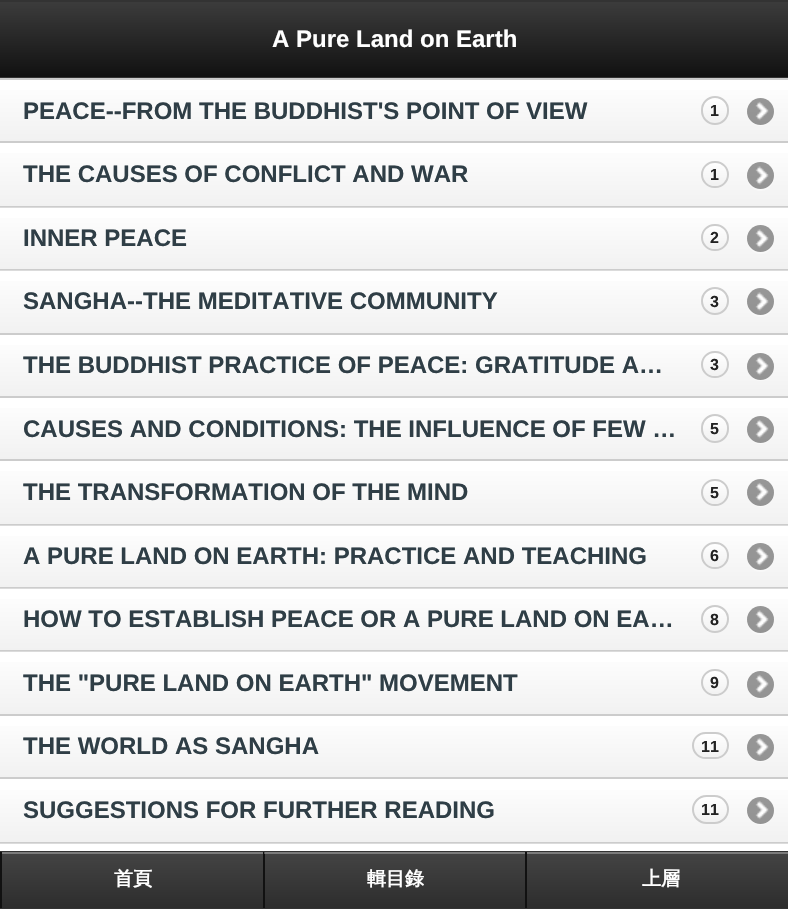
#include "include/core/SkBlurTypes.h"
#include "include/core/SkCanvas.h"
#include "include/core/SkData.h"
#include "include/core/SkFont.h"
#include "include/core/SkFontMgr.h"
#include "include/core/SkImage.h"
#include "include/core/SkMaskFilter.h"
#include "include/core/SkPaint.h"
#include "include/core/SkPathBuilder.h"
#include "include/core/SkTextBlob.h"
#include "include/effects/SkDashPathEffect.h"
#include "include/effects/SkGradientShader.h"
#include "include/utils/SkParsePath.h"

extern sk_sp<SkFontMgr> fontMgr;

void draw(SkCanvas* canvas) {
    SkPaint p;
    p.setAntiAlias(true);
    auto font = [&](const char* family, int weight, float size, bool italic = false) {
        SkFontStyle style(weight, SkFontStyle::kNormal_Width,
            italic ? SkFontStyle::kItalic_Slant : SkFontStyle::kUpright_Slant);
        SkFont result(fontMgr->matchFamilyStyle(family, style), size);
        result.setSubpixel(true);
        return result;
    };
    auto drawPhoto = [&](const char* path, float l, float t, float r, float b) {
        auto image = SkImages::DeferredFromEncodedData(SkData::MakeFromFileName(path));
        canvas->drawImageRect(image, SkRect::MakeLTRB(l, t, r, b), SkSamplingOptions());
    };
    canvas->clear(0xFFFFFFFF);
    {
        const SkColor colors[] = {0xFF3C3C3C, 0xFF111111};
        const float stops[] = {0, 1};
        const SkPoint ends[] = {{395, 1.5f}, {395, 77}};
        p.setShader(SkGradientShader::MakeLinear(ends, colors, stops, 2, SkTileMode::kClamp));
        p.setAlpha(255);
    }
    canvas->drawRect(SkRect::MakeLTRB(0, 2, 788, 77), p);
    p.setShader(nullptr);
    p.setColor(0xFF333333);
    canvas->drawRect(SkRect::MakeLTRB(0, 0, 788, 2), p);
    canvas->drawRect(SkRect::MakeLTRB(0, 77, 788, 78), p);
    auto font1 = font("Liberation Sans", 700, 24);
    p.setColor(0xFFFFFFFF);
    canvas->drawString("A Pure Land on Earth", 272, 47, font1, p);
    {
        const SkColor colors[] = {0xFFFFFFFF, 0xFFF1F1F1};
        const float stops[] = {0, 1};
        const SkPoint ends[] = {{395, 79}, {395, 141}};
        p.setShader(SkGradientShader::MakeLinear(ends, colors, stops, 2, SkTileMode::kClamp));
        p.setAlpha(255);
    }
    canvas->drawRect(SkRect::MakeLTRB(0, 90, 788, 141), p);
    p.setShader(nullptr);
    p.setColor(0xFFCCCCCC);
    canvas->drawRect(SkRect::MakeLTRB(0, 78, 788, 80), p);
    p.setColor(0xFF2F3E46);
    canvas->drawString("PEACE--FROM THE BUDDHIST'S POINT OF VIEW", 23, 119, font1, p);
    {
        const SkColor colors[] = {0xFFFFFFFF, 0xFFF1F1F1};
        const float stops[] = {0, 1};
        const SkPoint ends[] = {{715, 98}, {715, 123}};
        p.setShader(SkGradientShader::MakeLinear(ends, colors, stops, 2, SkTileMode::kClamp));
        p.setAlpha(255);
    }
    canvas->drawRoundRect(SkRect::MakeLTRB(702, 98, 728, 123), 12.5f, 12.5f, p);
    p.setStyle(SkPaint::kStroke_Style);
    p.setStrokeWidth(2);
    p.setShader(nullptr);
    p.setColor(0xFFCCCCCC);
    canvas->drawRoundRect(SkRect::MakeLTRB(702, 97, 728, 124), 13, 13, p);
    auto font2 = font("Liberation Sans", 700, 16);
    p.setStyle(SkPaint::kFill_Style);
    p.setColor(0xFF222222);
    canvas->drawString("1", 710, 116, font2, p);
    p.setColor(0xFFF9F9F9);
    canvas->drawPath(SkPathBuilder().moveTo(774, 112).cubicTo(773, 128.5f, 748, 128.5f, 747, 112).cubicTo(746.5f, 125.5f, 764, 131.5f, 771.5f, 120).cubicTo(773.5f, 117.5f, 774, 114.5f, 774, 112).close().detach(), p);
    p.setColor(0x66000000);
    canvas->drawCircle(760.5f, 111.5f, 13.5f, p);
    drawPhoto("media/1.png", 755, 101, 769, 121);
    {
        const SkColor colors[] = {0xFFFFFFFF, 0xFFF1F1F1};
        const float stops[] = {0, 1};
        const SkPoint ends[] = {{395, 142}, {395, 206}};
        p.setShader(SkGradientShader::MakeLinear(ends, colors, stops, 2, SkTileMode::kClamp));
        p.setAlpha(255);
    }
    canvas->drawRect(SkRect::MakeLTRB(0, 153, 788, 206), p);
    p.setShader(nullptr);
    p.setColor(0xFFCCCCCC);
    canvas->drawRect(SkRect::MakeLTRB(0, 141, 788, 143), p);
    p.setColor(0xFF2F3E46);
    canvas->drawString("THE CAUSES OF CONFLICT AND WAR", 23, 182, font1, p);
    {
        const SkColor colors[] = {0xFFFFFFFF, 0xFFF1F1F1};
        const float stops[] = {0, 1};
        const SkPoint ends[] = {{715, 162}, {715, 186}};
        p.setShader(SkGradientShader::MakeLinear(ends, colors, stops, 2, SkTileMode::kClamp));
        p.setAlpha(255);
    }
    canvas->drawRoundRect(SkRect::MakeLTRB(702, 162, 728, 186), 12, 12, p);
    p.setStyle(SkPaint::kStroke_Style);
    p.setShader(nullptr);
    p.setColor(0xFFCCCCCC);
    canvas->drawRoundRect(SkRect::MakeLTRB(702, 162, 728, 187), 12.5f, 12.5f, p);
    p.setStyle(SkPaint::kFill_Style);
    p.setColor(0xFF222222);
    canvas->drawString("1", 710, 180, font2, p);
    p.setColor(0x66FFFFFF);
    canvas->drawPath(SkPathBuilder().moveTo(774, 176.5f).cubicTo(773, 193, 748, 193, 747, 176.5f).cubicTo(746, 190, 764, 196.5f, 771.5f, 185).cubicTo(773.5f, 182.5f, 774, 179.5f, 774, 176.5f).close().detach(), p);
    p.setColor(0x66000000);
    canvas->drawCircle(760.5f, 175.5f, 13.5f, p);
    drawPhoto("media/2.png", 755, 166, 769, 185);
    {
        const SkColor colors[] = {0xFFFFFFFF, 0xFFF1F1F1};
        const float stops[] = {0, 1};
        const SkPoint ends[] = {{395, 207}, {395, 269}};
        p.setShader(SkGradientShader::MakeLinear(ends, colors, stops, 2, SkTileMode::kClamp));
        p.setAlpha(255);
    }
    canvas->drawRect(SkRect::MakeLTRB(0, 218, 788, 269), p);
    p.setShader(nullptr);
    p.setColor(0xFFCCCCCC);
    canvas->drawRect(SkRect::MakeLTRB(0, 206, 788, 207), p);
    p.setColor(0xFFDBDBDB);
    canvas->drawRect(SkRect::MakeLTRB(0, 207, 788, 208), p);
    p.setColor(0xFF2F3E46);
    canvas->drawString("INNER PEACE", 23, 246, font1, p);
    {
        const SkColor colors[] = {0xFFFFFFFF, 0xFFF1F1F1};
        const float stops[] = {0, 1};
        const SkPoint ends[] = {{715, 225}, {715, 249}};
        p.setShader(SkGradientShader::MakeLinear(ends, colors, stops, 2, SkTileMode::kClamp));
        p.setAlpha(255);
    }
    canvas->drawRoundRect(SkRect::MakeLTRB(702, 225, 728, 249), 12, 12, p);
    p.setStyle(SkPaint::kStroke_Style);
    p.setShader(nullptr);
    p.setColor(0xFFCCCCCC);
    canvas->drawRoundRect(SkRect::MakeLTRB(702, 225, 728, 250), 12.5f, 12.5f, p);
    p.setStyle(SkPaint::kFill_Style);
    p.setColor(0xFF222222);
    canvas->drawString("2", 710, 243, font2, p);
    p.setColor(0xFFF9F9F9);
    canvas->drawPath(SkPathBuilder().moveTo(774, 239.5f).cubicTo(773, 256, 748, 256, 747, 239.5f).cubicTo(746, 253, 764, 259.5f, 771.5f, 248).cubicTo(773.5f, 245.5f, 774, 242.5f, 774, 239.5f).close().detach(), p);
    p.setColor(0x66000000);
    canvas->drawCircle(760.5f, 238.5f, 13.5f, p);
    drawPhoto("media/3.png", 755, 229, 769, 248);
    {
        const SkColor colors[] = {0xFFFFFFFF, 0xFFF1F1F1};
        const float stops[] = {0, 1};
        const SkPoint ends[] = {{395, 270}, {395, 333}};
        p.setShader(SkGradientShader::MakeLinear(ends, colors, stops, 2, SkTileMode::kClamp));
        p.setAlpha(255);
    }
    canvas->drawRect(SkRect::MakeLTRB(0, 281, 788, 333), p);
    p.setShader(nullptr);
    p.setColor(0xFFCCCCCC);
    canvas->drawRect(SkRect::MakeLTRB(0, 269, 788, 270), p);
    p.setColor(0xFFDBDBDB);
    canvas->drawRect(SkRect::MakeLTRB(0, 270, 788, 271), p);
    p.setColor(0xFF2F3E46);
    canvas->drawString("SANGHA--THE MEDITATIVE COMMUNITY", 23, 309, font1, p);
    {
        const SkColor colors[] = {0xFFFFFFFF, 0xFFF1F1F1};
        const float stops[] = {0, 1};
        const SkPoint ends[] = {{715, 288}, {715, 314}};
        p.setShader(SkGradientShader::MakeLinear(ends, colors, stops, 2, SkTileMode::kClamp));
        p.setAlpha(255);
    }
    canvas->drawCircle(715, 301, 13, p);
    p.setStyle(SkPaint::kStroke_Style);
    p.setShader(nullptr);
    p.setColor(0xFFCCCCCC);
    canvas->drawCircle(715, 301, 13, p);
    p.setStyle(SkPaint::kFill_Style);
    p.setColor(0xFF222222);
    canvas->drawString("3", 710, 307, font2, p);
    p.setColor(0xFFF9F9F9);
    canvas->drawPath(SkPathBuilder().moveTo(774, 302.5f).cubicTo(773, 319, 748, 319, 747, 302.5f).cubicTo(746, 316, 764, 322.5f, 771.5f, 311).cubicTo(773.5f, 308.5f, 774, 305.5f, 774, 302.5f).close().detach(), p);
    p.setColor(0x66000000);
    canvas->drawCircle(760.5f, 301.5f, 13.5f, p);
    drawPhoto("media/4.png", 755, 292, 769, 311);
    {
        const SkColor colors[] = {0xFFFFFFFF, 0xFFF1F1F1};
        const float stops[] = {0, 1};
        const SkPoint ends[] = {{395, 334}, {395, 396}};
        p.setShader(SkGradientShader::MakeLinear(ends, colors, stops, 2, SkTileMode::kClamp));
        p.setAlpha(255);
    }
    canvas->drawRect(SkRect::MakeLTRB(0, 345, 788, 396), p);
    p.setShader(nullptr);
    p.setColor(0xFFCCCCCC);
    canvas->drawRect(SkRect::MakeLTRB(0, 333, 788, 335), p);
    p.setColor(0xFF2F3E46);
    canvas->drawString("THE BUDDHIST PRACTICE OF PEACE: GRATITUDE A…", 23, 373, font1, p);
    {
        const SkColor colors[] = {0xFFFFFFFF, 0xFFF1F1F1};
        const float stops[] = {0, 1};
        const SkPoint ends[] = {{715, 353}, {715, 377}};
        p.setShader(SkGradientShader::MakeLinear(ends, colors, stops, 2, SkTileMode::kClamp));
        p.setAlpha(255);
    }
    canvas->drawRoundRect(SkRect::MakeLTRB(702, 353, 728, 377), 12, 12, p);
    p.setStyle(SkPaint::kStroke_Style);
    p.setShader(nullptr);
    p.setColor(0xFFCCCCCC);
    canvas->drawRoundRect(SkRect::MakeLTRB(702, 352, 728, 377), 12.5f, 12.5f, p);
    p.setStyle(SkPaint::kFill_Style);
    p.setColor(0xFF222222);
    canvas->drawString("3", 710, 370, font2, p);
    p.setColor(0xFFF9F9F9);
    canvas->drawPath(SkPathBuilder().moveTo(774, 367).cubicTo(773, 383.5f, 748, 383.5f, 747, 367).cubicTo(747, 369.5f, 747.5f, 372.5f, 749.5f, 375).cubicTo(757, 386.5f, 774.5f, 380.5f, 774, 367).close().detach(), p);
    p.setColor(0x66000000);
    canvas->drawCircle(760.5f, 366.5f, 13.5f, p);
    drawPhoto("media/1.png", 755, 356, 769, 376);
    {
        const SkColor colors[] = {0xFFFFFFFF, 0xFFF1F1F1};
        const float stops[] = {0, 1};
        const SkPoint ends[] = {{395, 397}, {395, 459}};
        p.setShader(SkGradientShader::MakeLinear(ends, colors, stops, 2, SkTileMode::kClamp));
        p.setAlpha(255);
    }
    canvas->drawRect(SkRect::MakeLTRB(0, 408, 788, 459), p);
    p.setShader(nullptr);
    p.setColor(0xFFCCCCCC);
    canvas->drawRect(SkRect::MakeLTRB(0, 396, 788, 398), p);
    p.setColor(0xFF2F3E46);
    canvas->drawString("CAUSES AND CONDITIONS: THE INFLUENCE OF FEW …", 23, 437, font1, p);
    {
        const SkColor colors[] = {0xFFFFFFFF, 0xFFF1F1F1};
        const float stops[] = {0, 1};
        const SkPoint ends[] = {{715, 416}, {715, 441}};
        p.setShader(SkGradientShader::MakeLinear(ends, colors, stops, 2, SkTileMode::kClamp));
        p.setAlpha(255);
    }
    canvas->drawRoundRect(SkRect::MakeLTRB(702, 416, 728, 441), 12.5f, 12.5f, p);
    p.setStyle(SkPaint::kStroke_Style);
    p.setShader(nullptr);
    p.setColor(0xFFCCCCCC);
    canvas->drawRoundRect(SkRect::MakeLTRB(702, 415, 728, 442), 13, 13, p);
    p.setStyle(SkPaint::kFill_Style);
    p.setColor(0xFF222222);
    canvas->drawString("5", 710, 434, font2, p);
    p.setColor(0xFFF9F9F9);
    canvas->drawPath(SkPathBuilder().moveTo(774, 430).cubicTo(773, 446.5f, 748, 446.5f, 747, 430).cubicTo(747, 432.5f, 747.5f, 435.5f, 749.5f, 438).cubicTo(757, 449.5f, 774.5f, 443.5f, 774, 430).close().detach(), p);
    p.setColor(0x66000000);
    canvas->drawCircle(760.5f, 429.5f, 13.5f, p);
    drawPhoto("media/1.png", 755, 419, 769, 439);
    {
        const SkColor colors[] = {0xFFFFFFFF, 0xFFF1F1F1};
        const float stops[] = {0, 1};
        const SkPoint ends[] = {{395, 460}, {395, 524}};
        p.setShader(SkGradientShader::MakeLinear(ends, colors, stops, 2, SkTileMode::kClamp));
        p.setAlpha(255);
    }
    canvas->drawRect(SkRect::MakeLTRB(0, 471, 788, 524), p);
    p.setShader(nullptr);
    p.setColor(0xFFCCCCCC);
    canvas->drawRect(SkRect::MakeLTRB(0, 459, 788, 461), p);
    p.setColor(0xFF2F3E46);
    canvas->drawString("THE TRANSFORMATION OF THE MIND", 23, 500, font1, p);
    {
        const SkColor colors[] = {0xFFFFFFFF, 0xFFF1F1F1};
        const float stops[] = {0, 1};
        const SkPoint ends[] = {{715, 480}, {715, 504}};
        p.setShader(SkGradientShader::MakeLinear(ends, colors, stops, 2, SkTileMode::kClamp));
        p.setAlpha(255);
    }
    canvas->drawRoundRect(SkRect::MakeLTRB(702, 480, 728, 504), 12, 12, p);
    p.setStyle(SkPaint::kStroke_Style);
    p.setShader(nullptr);
    p.setColor(0xFFCCCCCC);
    canvas->drawRoundRect(SkRect::MakeLTRB(702, 480, 728, 505), 12.5f, 12.5f, p);
    p.setStyle(SkPaint::kFill_Style);
    p.setColor(0xFF222222);
    canvas->drawString("5", 710, 498, font2, p);
    p.setColor(0xFFF9F9F9);
    canvas->drawPath(SkPathBuilder().moveTo(774, 493).cubicTo(773, 509.5f, 748, 509.5f, 747, 493).cubicTo(747, 495.5f, 747.5f, 498.5f, 749.5f, 501).cubicTo(757, 512.5f, 774.5f, 506.5f, 774, 493).close().detach(), p);
    p.setColor(0x66000000);
    canvas->drawCircle(760.5f, 492.5f, 13.5f, p);
    drawPhoto("media/5.png", 755, 482, 769, 502);
    {
        const SkColor colors[] = {0xFFFFFFFF, 0xFFF1F1F1};
        const float stops[] = {0, 1};
        const SkPoint ends[] = {{395, 525}, {395, 587}};
        p.setShader(SkGradientShader::MakeLinear(ends, colors, stops, 2, SkTileMode::kClamp));
        p.setAlpha(255);
    }
    canvas->drawRect(SkRect::MakeLTRB(0, 536, 788, 587), p);
    p.setShader(nullptr);
    p.setColor(0xFFCCCCCC);
    canvas->drawRect(SkRect::MakeLTRB(0, 524, 788, 525), p);
    p.setColor(0xFFDBDBDB);
    canvas->drawRect(SkRect::MakeLTRB(0, 525, 788, 526), p);
    p.setColor(0xFF2F3E46);
    canvas->drawString("A PURE LAND ON EARTH: PRACTICE AND TEACHING", 23, 564, font1, p);
    {
        const SkColor colors[] = {0xFFFFFFFF, 0xFFF1F1F1};
        const float stops[] = {0, 1};
        const SkPoint ends[] = {{715, 543}, {715, 567}};
        p.setShader(SkGradientShader::MakeLinear(ends, colors, stops, 2, SkTileMode::kClamp));
        p.setAlpha(255);
    }
    canvas->drawRoundRect(SkRect::MakeLTRB(702, 543, 728, 567), 12, 12, p);
    p.setStyle(SkPaint::kStroke_Style);
    p.setShader(nullptr);
    p.setColor(0xFFCCCCCC);
    canvas->drawRoundRect(SkRect::MakeLTRB(702, 543, 728, 568), 12.5f, 12.5f, p);
    p.setStyle(SkPaint::kFill_Style);
    p.setColor(0xFF222222);
    canvas->drawString("6", 710, 561, font2, p);
    p.setColor(0xFFF9F9F9);
    canvas->drawPath(SkPathBuilder().moveTo(747, 557.5f).cubicTo(747, 560.5f, 747.5f, 563.5f, 749.5f, 566).cubicTo(757, 577.5f, 775, 571, 774, 557.5f).cubicTo(773, 574, 748, 574, 747, 557.5f).close().detach(), p);
    p.setColor(0x66000000);
    canvas->drawCircle(760.5f, 556.5f, 13.5f, p);
    drawPhoto("media/3.png", 755, 547, 769, 566);
    {
        const SkColor colors[] = {0xFFFFFFFF, 0xFFF1F1F1};
        const float stops[] = {0, 1};
        const SkPoint ends[] = {{395, 588}, {395, 650}};
        p.setShader(SkGradientShader::MakeLinear(ends, colors, stops, 2, SkTileMode::kClamp));
        p.setAlpha(255);
    }
    canvas->drawRect(SkRect::MakeLTRB(0, 599, 788, 650), p);
    p.setShader(nullptr);
    p.setColor(0xFFCCCCCC);
    canvas->drawRect(SkRect::MakeLTRB(0, 587, 788, 588), p);
    p.setColor(0xFFDBDBDB);
    canvas->drawRect(SkRect::MakeLTRB(0, 588, 788, 589), p);
    p.setColor(0xFF2F3E46);
    canvas->drawString("HOW TO ESTABLISH PEACE OR A PURE LAND ON EA…", 23, 627, font1, p);
    {
        const SkColor colors[] = {0xFFFFFFFF, 0xFFF1F1F1};
        const float stops[] = {0, 1};
        const SkPoint ends[] = {{715, 606}, {715, 632}};
        p.setShader(SkGradientShader::MakeLinear(ends, colors, stops, 2, SkTileMode::kClamp));
        p.setAlpha(255);
    }
    canvas->drawCircle(715, 619, 13, p);
    p.setStyle(SkPaint::kStroke_Style);
    p.setShader(nullptr);
    p.setColor(0xFFCCCCCC);
    canvas->drawCircle(715, 619, 13, p);
    p.setStyle(SkPaint::kFill_Style);
    p.setColor(0xFF222222);
    canvas->drawString("8", 710, 625, font2, p);
    p.setColor(0xFFF9F9F9);
    canvas->drawPath(SkPathBuilder().moveTo(747, 620.5f).cubicTo(746, 634, 764, 640.5f, 771.5f, 629).cubicTo(773.5f, 626.5f, 774, 623.5f, 774, 620.5f).cubicTo(773, 637, 748, 637, 747, 620.5f).close().detach(), p);
    p.setColor(0x66000000);
    canvas->drawCircle(760.5f, 619.5f, 13.5f, p);
    drawPhoto("media/3.png", 755, 610, 769, 629);
    {
        const SkColor colors[] = {0xFFFFFFFF, 0xFFF1F1F1};
        const float stops[] = {0, 1};
        const SkPoint ends[] = {{395, 651}, {395, 714}};
        p.setShader(SkGradientShader::MakeLinear(ends, colors, stops, 2, SkTileMode::kClamp));
        p.setAlpha(255);
    }
    canvas->drawRect(SkRect::MakeLTRB(0, 662, 788, 714), p);
    p.setShader(nullptr);
    p.setColor(0xFFCCCCCC);
    canvas->drawRect(SkRect::MakeLTRB(0, 650, 788, 651), p);
    p.setColor(0xFFDBDBDB);
    canvas->drawRect(SkRect::MakeLTRB(0, 651, 788, 652), p);
    p.setColor(0xFF2F3E46);
    canvas->drawString("THE \"PURE LAND ON EARTH\" MOVEMENT", 23, 691, font1, p);
    {
        const SkColor colors[] = {0xFFFFFFFF, 0xFFF1F1F1};
        const float stops[] = {0, 1};
        const SkPoint ends[] = {{715, 671}, {715, 695}};
        p.setShader(SkGradientShader::MakeLinear(ends, colors, stops, 2, SkTileMode::kClamp));
        p.setAlpha(255);
    }
    canvas->drawRoundRect(SkRect::MakeLTRB(702, 671, 728, 695), 12, 12, p);
    p.setStyle(SkPaint::kStroke_Style);
    p.setShader(nullptr);
    p.setColor(0xFFCCCCCC);
    canvas->drawRoundRect(SkRect::MakeLTRB(702, 670, 728, 695), 12.5f, 12.5f, p);
    p.setStyle(SkPaint::kFill_Style);
    p.setColor(0xFF222222);
    canvas->drawString("9", 710, 688, font2, p);
    p.setColor(0xFFF9F9F9);
    canvas->drawPath(SkPathBuilder().moveTo(747, 685).cubicTo(747, 687.5f, 747.5f, 690.5f, 749.5f, 693).cubicTo(757, 704.5f, 774.5f, 698.5f, 774, 685).cubicTo(773, 701.5f, 748, 701.5f, 747, 685).close().detach(), p);
    p.setColor(0x66000000);
    canvas->drawCircle(760.5f, 684.5f, 13.5f, p);
    drawPhoto("media/6.png", 755, 674, 769, 694);
    {
        const SkColor colors[] = {0xFFFFFFFF, 0xFFF1F1F1};
        const float stops[] = {0, 1};
        const SkPoint ends[] = {{395, 715}, {395, 777}};
        p.setShader(SkGradientShader::MakeLinear(ends, colors, stops, 2, SkTileMode::kClamp));
        p.setAlpha(255);
    }
    canvas->drawRect(SkRect::MakeLTRB(0, 726, 788, 777), p);
    p.setShader(nullptr);
    p.setColor(0xFFCCCCCC);
    canvas->drawRect(SkRect::MakeLTRB(0, 714, 788, 716), p);
    p.setColor(0xFF2F3E46);
    canvas->drawString("THE WORLD AS SANGHA", 23, 754, font1, p);
    {
        const SkColor colors[] = {0xFFFFFFFF, 0xFFF1F1F1};
        const float stops[] = {0, 1};
        const SkPoint ends[] = {{710, 734}, {710, 758}};
        p.setShader(SkGradientShader::MakeLinear(ends, colors, stops, 2, SkTileMode::kClamp));
        p.setAlpha(255);
    }
    canvas->drawRoundRect(SkRect::MakeLTRB(693, 734, 728, 758), 12, 12, p);
    p.setStyle(SkPaint::kStroke_Style);
    p.setShader(nullptr);
    p.setColor(0xFFCCCCCC);
    canvas->drawRoundRect(SkRect::MakeLTRB(693, 733, 728, 758), 12.5f, 12.5f, p);
    p.setStyle(SkPaint::kFill_Style);
    p.setColor(0xFF222222);
    canvas->drawString("11", 701, 752, font2, p);
    p.setColor(0xFFF9F9F9);
    canvas->drawPath(SkPathBuilder().moveTo(747, 748).cubicTo(746.5f, 761.5f, 764, 767.5f, 771.5f, 756).cubicTo(773.5f, 753.5f, 774, 750.5f, 774, 748).cubicTo(773, 764.5f, 748, 764.5f, 747, 748).close().detach(), p);
    p.setColor(0x66000000);
    canvas->drawCircle(760.5f, 747.5f, 13.5f, p);
    drawPhoto("media/1.png", 755, 737, 769, 757);
    {
        const SkColor colors[] = {0xFFFFFFFF, 0xFFF1F1F1};
        const float stops[] = {0, 1};
        const SkPoint ends[] = {{395, 779}, {395, 842}};
        p.setShader(SkGradientShader::MakeLinear(ends, colors, stops, 2, SkTileMode::kClamp));
        p.setAlpha(255);
    }
    canvas->drawRect(SkRect::MakeLTRB(0, 790, 788, 842), p);
    p.setShader(nullptr);
    p.setColor(0xFFCCCCCC);
    canvas->drawRect(SkRect::MakeLTRB(0, 777, 788, 779), p);
    p.setColor(0xFF2F3E46);
    canvas->drawString("SUGGESTIONS FOR FURTHER READING", 23, 818, font1, p);
    {
        const SkColor colors[] = {0xFFFFFFFF, 0xFFF1F1F1};
        const float stops[] = {0, 1};
        const SkPoint ends[] = {{710, 797}, {710, 822}};
        p.setShader(SkGradientShader::MakeLinear(ends, colors, stops, 2, SkTileMode::kClamp));
        p.setAlpha(255);
    }
    canvas->drawRoundRect(SkRect::MakeLTRB(693, 797, 728, 822), 12.5f, 12.5f, p);
    p.setStyle(SkPaint::kStroke_Style);
    p.setShader(nullptr);
    p.setColor(0xFFCCCCCC);
    canvas->drawRoundRect(SkRect::MakeLTRB(693, 796, 728, 823), 13.5f, 13.5f, p);
    p.setStyle(SkPaint::kFill_Style);
    p.setColor(0xFF222222);
    canvas->drawString("11", 701, 815, font2, p);
    p.setColor(0xFFF9F9F9);
    canvas->drawPath(SkPathBuilder().moveTo(747, 811).cubicTo(746.5f, 824.5f, 764, 830.5f, 771.5f, 819).cubicTo(773.5f, 816.5f, 774, 813.5f, 774, 811).cubicTo(773, 827.5f, 748, 827.5f, 747, 811).close().detach(), p);
    p.setColor(0x66000000);
    canvas->drawCircle(760.5f, 810.5f, 13.5f, p);
    drawPhoto("media/7.png", 755, 800, 769, 820);
    {
        const struct { float l, t, r, b; SkColor color; } items[] = {
            {0, 842, 788, 843, 0xFFCCCCCC},
            {0, 843, 788, 844, 0xFFDBDBDB},
            {0, 851, 788, 852, 0xFF333333},
            {0, 908, 788, 909, 0xFF333333},
        };
        for (auto [l, t, r, b, color] : items) {
            p.setColor(color);
            canvas->drawRect(SkRect::MakeLTRB(l, t, r, b), p);
        }
    }
    {
        const SkColor colors[] = {0xFF444444, 0xFF2D2D2D};
        const float stops[] = {0, 1};
        const SkPoint ends[] = {{133, 852}, {133, 908}};
        p.setShader(SkGradientShader::MakeLinear(ends, colors, stops, 2, SkTileMode::kClamp));
        p.setAlpha(255);
    }
    canvas->drawRect(SkRect::MakeLTRB(2, 854, 263, 908), p);
    p.setShader(nullptr);
    p.setColor(0xFF111111);
    canvas->drawRect(SkRect::MakeLTRB(0, 852, 2, 908), p);
    p.setColor(0xFF7C7C7C);
    canvas->drawRect(SkRect::MakeLTRB(2, 852, 264, 854), p);
    auto font3 = font("WenQuanYi Zen Hei", 700, 19);
    p.setColor(0xFFFFFFFF);
    canvas->drawString("首頁", 114, 885, font3, p);
    {
        const SkColor colors[] = {0xFF444444, 0xFF2D2D2D};
        const float stops[] = {0, 1};
        const SkPoint ends[] = {{395, 852}, {395, 908}};
        p.setShader(SkGradientShader::MakeLinear(ends, colors, stops, 2, SkTileMode::kClamp));
        p.setAlpha(255);
    }
    canvas->drawRect(SkRect::MakeLTRB(265, 854, 525, 908), p);
    {
        const SkColor colors[] = {0xFF7C7C7C, 0xFF6C6C6C};
        const float stops[] = {0, 1};
        const SkPoint ends[] = {{395, 852}, {395, 908}};
        p.setShader(SkGradientShader::MakeLinear(ends, colors, stops, 2, SkTileMode::kClamp));
        p.setAlpha(255);
    }
    canvas->drawRect(SkRect::MakeLTRB(264, 852, 527, 854), p);
    p.setShader(nullptr);
    p.setColor(0xFF111111);
    canvas->drawRect(SkRect::MakeLTRB(263, 852, 265, 908), p);
    p.setColor(0xFF585858);
    canvas->drawRect(SkRect::MakeLTRB(264, 852, 265, 854), p);
    p.setColor(0xFFFFFFFF);
    canvas->drawString("輯目錄", 367, 885, font3, p);
    {
        const SkColor colors[] = {0xFF444444, 0xFF2D2D2D};
        const float stops[] = {0, 1};
        const SkPoint ends[] = {{661, 852}, {661, 908}};
        p.setShader(SkGradientShader::MakeLinear(ends, colors, stops, 2, SkTileMode::kClamp));
        p.setAlpha(255);
    }
    canvas->drawRect(SkRect::MakeLTRB(527, 854, 788, 908), p);
    p.setShader(nullptr);
    p.setColor(0xFF111111);
    canvas->drawRect(SkRect::MakeLTRB(525, 852, 527, 908), p);
    p.setColor(0xFF7C7C7C);
    canvas->drawRect(SkRect::MakeLTRB(527, 852, 788, 854), p);
    p.setColor(0xFFFFFFFF);
    canvas->drawString("上層", 642, 885, font3, p);
}
